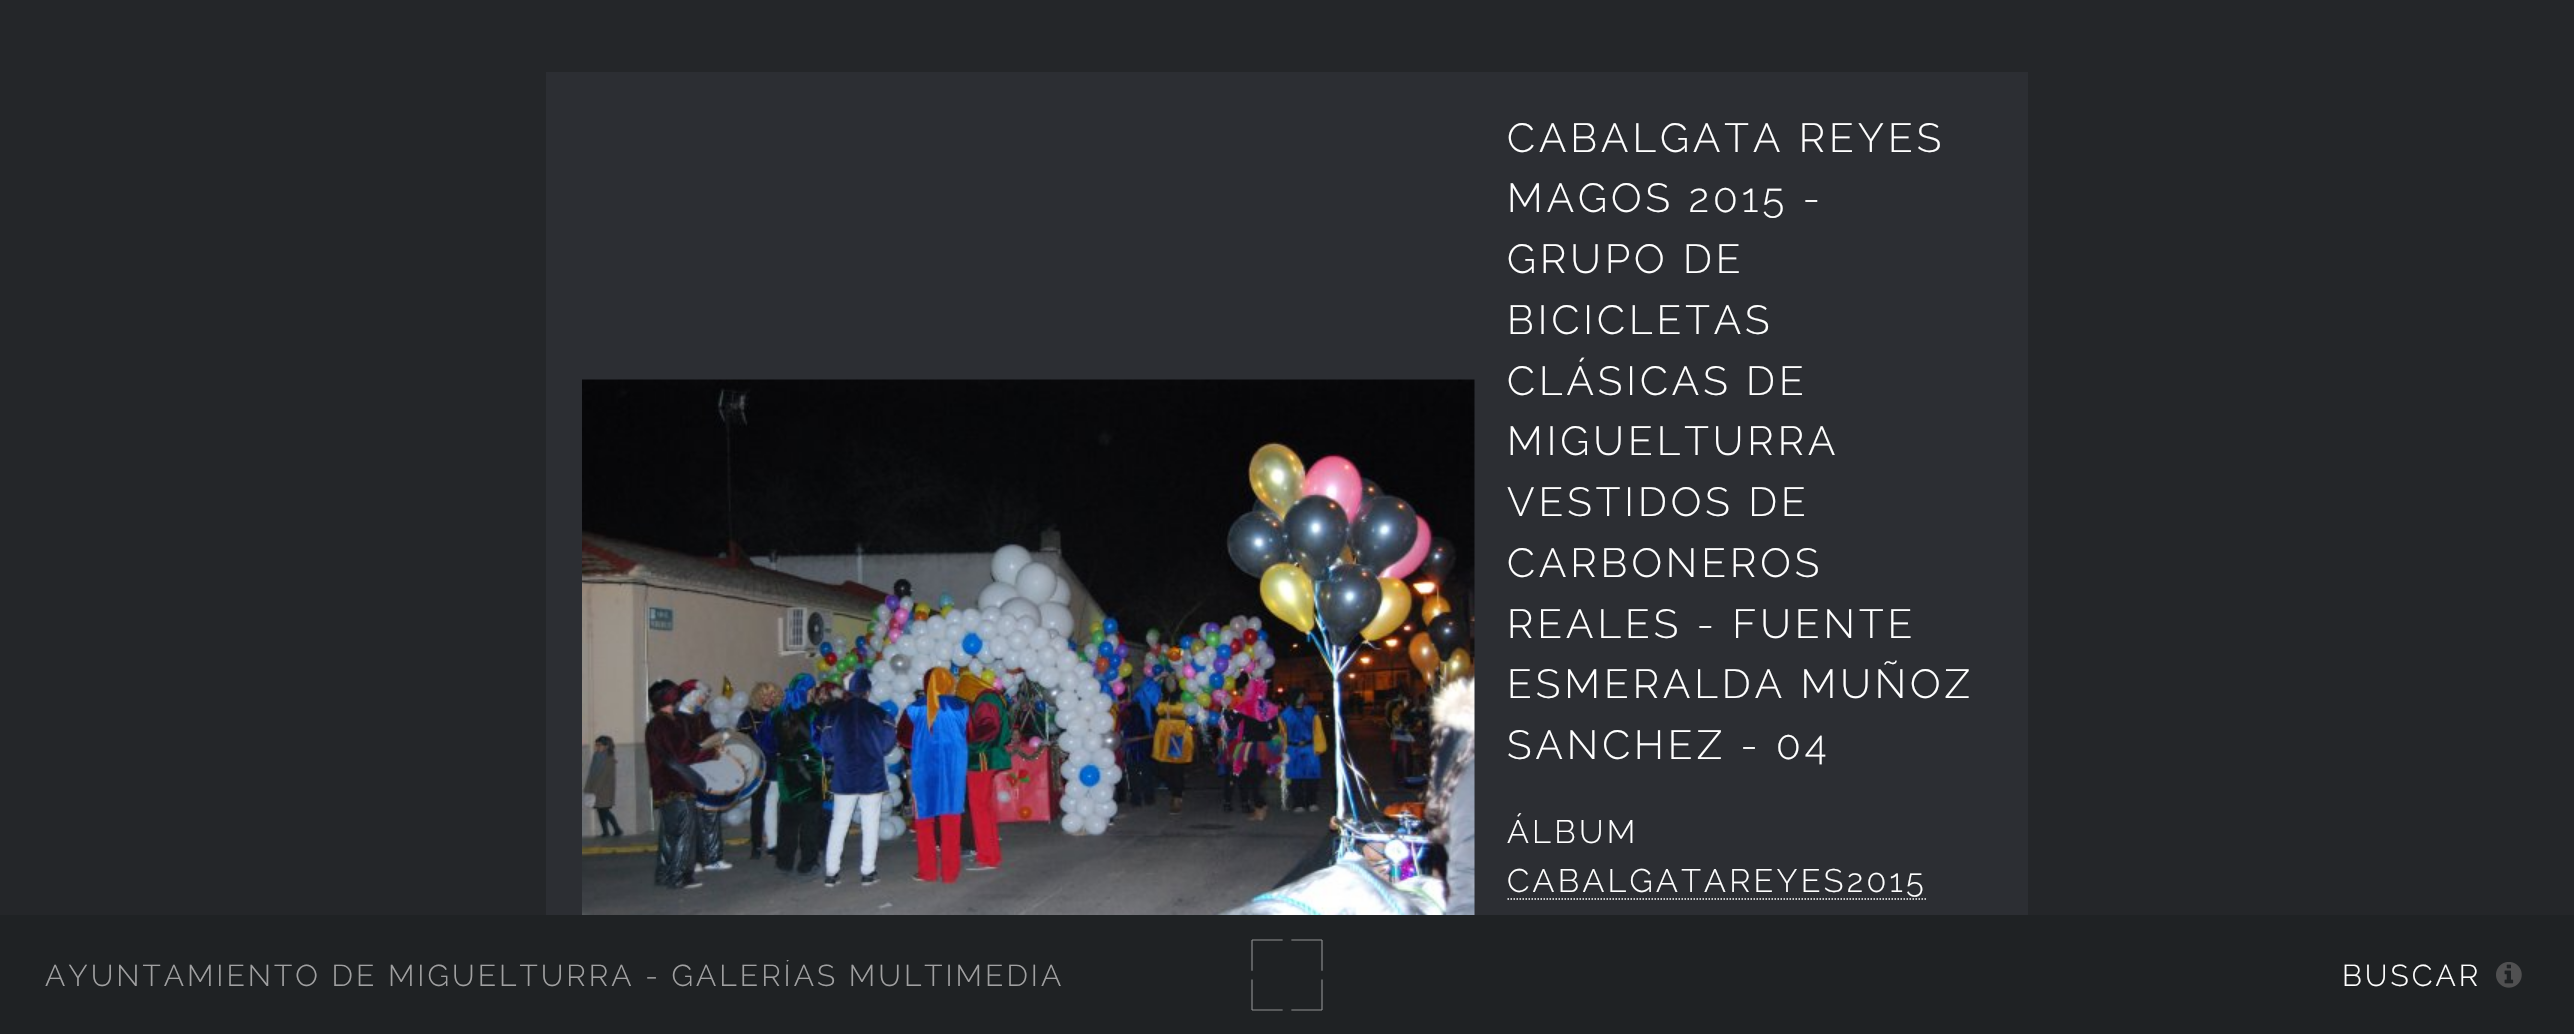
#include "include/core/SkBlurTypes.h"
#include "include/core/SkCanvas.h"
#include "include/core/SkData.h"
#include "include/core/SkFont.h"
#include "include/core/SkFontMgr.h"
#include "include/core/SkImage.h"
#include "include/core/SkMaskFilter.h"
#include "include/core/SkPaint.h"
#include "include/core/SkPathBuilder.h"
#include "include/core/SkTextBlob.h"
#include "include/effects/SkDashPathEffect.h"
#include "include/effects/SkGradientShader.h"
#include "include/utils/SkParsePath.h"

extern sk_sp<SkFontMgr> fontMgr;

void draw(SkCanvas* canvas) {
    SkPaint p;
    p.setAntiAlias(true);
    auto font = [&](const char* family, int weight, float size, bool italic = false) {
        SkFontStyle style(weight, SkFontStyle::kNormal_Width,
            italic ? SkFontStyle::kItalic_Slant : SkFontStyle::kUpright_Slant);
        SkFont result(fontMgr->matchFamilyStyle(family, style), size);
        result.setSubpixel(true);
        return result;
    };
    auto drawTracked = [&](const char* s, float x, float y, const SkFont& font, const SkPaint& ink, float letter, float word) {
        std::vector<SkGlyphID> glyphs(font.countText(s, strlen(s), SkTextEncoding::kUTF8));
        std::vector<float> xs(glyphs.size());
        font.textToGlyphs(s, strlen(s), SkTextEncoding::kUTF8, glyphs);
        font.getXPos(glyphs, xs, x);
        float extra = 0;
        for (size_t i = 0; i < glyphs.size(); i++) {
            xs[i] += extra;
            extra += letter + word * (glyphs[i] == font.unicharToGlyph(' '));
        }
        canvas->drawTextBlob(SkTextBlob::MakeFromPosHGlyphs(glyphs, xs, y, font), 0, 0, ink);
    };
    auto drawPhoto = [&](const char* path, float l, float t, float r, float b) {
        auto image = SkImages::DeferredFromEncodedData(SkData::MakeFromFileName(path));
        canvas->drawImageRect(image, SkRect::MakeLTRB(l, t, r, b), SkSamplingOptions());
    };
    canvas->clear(0xFF242629);
    p.setStyle(SkPaint::kStroke_Style);
    p.setStrokeWidth(36);
    p.setColor(0xFF2C2E33);
    canvas->drawRect(SkRect::MakeLTRB(564, 90, 2010, 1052), p);
    p.setStyle(SkPaint::kFill_Style);
    canvas->drawRect(SkRect::MakeLTRB(582, 108, 1992, 915), p);
    drawPhoto("media/1.png", 582, 379, 1475, 915);
    auto font1 = font("Raleway", 300, 40.5f);
    p.setColor(0xFFFFFFFF);
    {
        const struct { const char* s; float x, y; } items[] = {
            {"CABALGATA REYES", 1507, 152},
            {"MAGOS 2015 -", 1507, 212},
            {"GRUPO DE", 1507, 273},
            {"BICICLETAS", 1507, 334},
            {"CLÁSICAS DE", 1507, 395},
            {"MIGUELTURRA", 1507, 455},
            {"VESTIDOS DE", 1507, 516},
            {"CARBONEROS", 1507, 577},
            {"REALES - FUENTE", 1507, 638},
            {"ESMERALDA MUÑOZ", 1507, 698},
            {"SANCHEZ - 04", 1507, 759},
        };
        for (auto [s, x, y] : items) {
            drawTracked(s, x, y, font1, p, 4, 0);
        }
    }
    auto font2 = font("Raleway", 300, 32.4f);
    drawTracked("ÁLBUM", 1507, 843, font2, p, 3.25f, 0);
    drawTracked("CABALGATAREYES2015", 1507, 892, font2, p, 3.25f, 0);
    p.setStyle(SkPaint::kStroke_Style);
    p.setStrokeWidth(1.5f);
    p.setPathEffect(SkDashPathEffect::Make({{1.5f, 1.5f}}, 0));
    canvas->drawPath(SkPathBuilder().moveTo(1507.5f, 899).lineTo(1926, 899).detach(), p);
    p.setPathEffect(nullptr);
    p.setStyle(SkPaint::kFill_Style);
    p.setColor(0xFF1F2224);
    canvas->drawRect(SkRect::MakeLTRB(0, 915, 2574, 1034), p);
    canvas->save();
    canvas->clipRect(SkRect::MakeLTRB(45, 960, 1064, 990));
    auto font3 = font("Raleway", 300, 30);
    p.setColor(0xFFA0A0A1);
    drawTracked("AYUNTAMIENTO DE MIGUELTURRA - GALERÍAS MULTIMEDIA", 45, 986, font3, p, 3, 0);
    canvas->restore();
    drawPhoto("media/2.png", 1251, 939, 1323, 1011);
    p.setColor(0xFFFFFFFF);
    drawTracked("BUSCAR", 2342, 986, font3, p, 3, 0);
    drawPhoto("media/3.png", 2496, 962, 2522, 988);
}
